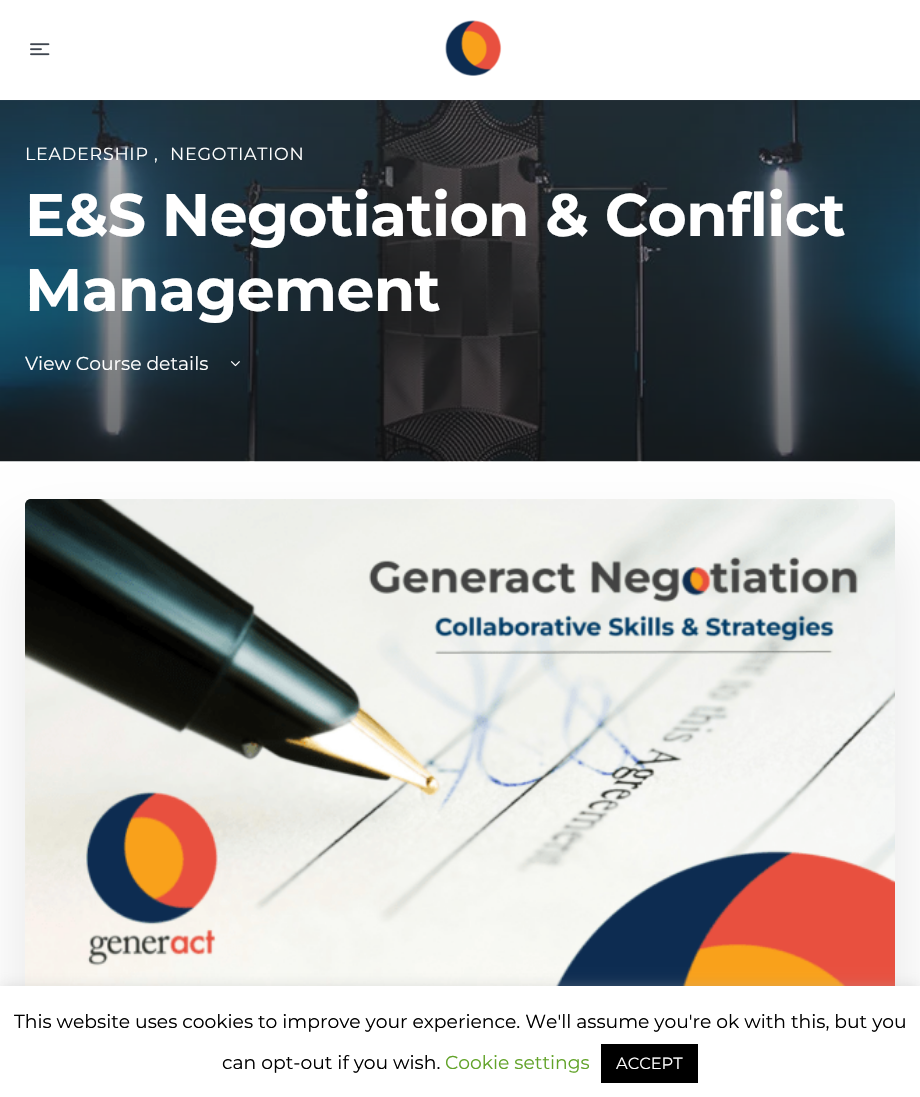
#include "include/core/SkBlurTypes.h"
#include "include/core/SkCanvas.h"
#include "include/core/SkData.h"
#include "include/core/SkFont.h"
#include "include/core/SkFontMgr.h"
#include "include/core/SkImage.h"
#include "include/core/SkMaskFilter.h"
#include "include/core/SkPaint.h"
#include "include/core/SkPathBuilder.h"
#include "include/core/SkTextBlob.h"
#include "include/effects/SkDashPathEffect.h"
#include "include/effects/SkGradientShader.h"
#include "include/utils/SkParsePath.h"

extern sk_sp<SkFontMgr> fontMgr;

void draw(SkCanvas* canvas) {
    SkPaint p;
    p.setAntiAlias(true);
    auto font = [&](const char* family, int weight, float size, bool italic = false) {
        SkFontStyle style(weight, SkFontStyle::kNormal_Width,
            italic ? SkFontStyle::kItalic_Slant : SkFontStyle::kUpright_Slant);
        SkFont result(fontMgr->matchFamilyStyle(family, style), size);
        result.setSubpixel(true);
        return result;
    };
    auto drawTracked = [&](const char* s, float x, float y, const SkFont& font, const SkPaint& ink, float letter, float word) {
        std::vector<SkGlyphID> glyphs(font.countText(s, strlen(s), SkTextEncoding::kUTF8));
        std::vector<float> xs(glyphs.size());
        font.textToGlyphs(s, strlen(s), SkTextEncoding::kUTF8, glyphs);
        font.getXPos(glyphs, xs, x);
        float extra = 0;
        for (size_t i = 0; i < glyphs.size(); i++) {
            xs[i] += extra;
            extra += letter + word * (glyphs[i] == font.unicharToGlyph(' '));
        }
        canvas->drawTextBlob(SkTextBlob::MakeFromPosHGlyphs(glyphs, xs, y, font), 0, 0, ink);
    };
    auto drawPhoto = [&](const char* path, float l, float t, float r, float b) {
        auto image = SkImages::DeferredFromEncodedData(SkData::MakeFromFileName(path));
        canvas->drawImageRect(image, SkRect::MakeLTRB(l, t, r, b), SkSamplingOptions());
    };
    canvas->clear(0xFFFFFFFF);
    p.setColor(0x1A000000);
    p.setMaskFilter(SkMaskFilter::MakeBlur(kNormal_SkBlurStyle, 34));
    canvas->drawRoundRect(SkRect::MakeLTRB(25, 539, 895, 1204), 5, 5, p);
    p.setMaskFilter(nullptr);
    drawPhoto("media/3.png", 0, 100, 920, 462);
    p.setColor(0x0D8B8D9D);
    canvas->drawRect(SkRect::MakeLTRB(0, 100, 920, 101), p);
    drawPhoto("media/1.png", 30, 43, 50, 56);
    drawPhoto("media/2.png", 445, 20, 502, 76);
    auto font1 = font("Montserrat", 400, 17.5f);
    p.setColor(0xFFFFFFFF);
    drawTracked("LEADERSHIP ,", 25, 160, font1, p, 0.75f, 0);
    drawTracked("NEGOTIATION", 170, 160, font1, p, 0.75f, 0);
    auto font2 = font("Montserrat", 700, 60);
    drawTracked("E&S Negotiation & Conflict", 25, 236, font2, p, -0.6f, 0);
    drawTracked("Management", 25, 311, font2, p, -0.6f, 0);
    auto font3 = font("Montserrat", 400, 18.75f);
    canvas->drawString("View Course details", 25, 370, font3, p);
    drawPhoto("media/4.png", 231, 361, 240, 367);
    drawPhoto("media/5.png", 25, 499, 895, 986);
    p.setColor(0x4DACABAB);
    p.setMaskFilter(SkMaskFilter::MakeBlur(kNormal_SkBlurStyle, 6));
    canvas->drawRect(SkRect::MakeLTRB(0, 985, 920, 1096), p);
    p.setMaskFilter(nullptr);
    p.setColor(0xFFFFFFFF);
    canvas->drawRect(SkRect::MakeLTRB(0, 986, 920, 1097), p);
    p.setColor(0xFF000000);
    canvas->drawString("This website uses cookies to improve your experience. We'll assume you're ok with this, but you", 14, 1028, font3, p);
    canvas->drawString("can opt-out if you wish.", 222, 1069, font3, p);
    p.setColor(0xFF62A329);
    canvas->drawString("Cookie settings", 445, 1069, font3, p);
    p.setColor(0xFF000000);
    canvas->drawRect(SkRect::MakeLTRB(601, 1044, 698, 1083), p);
    auto font4 = font("Montserrat", 400, 16.25f);
    p.setColor(0xFFFFFFFF);
    canvas->drawString("ACCEPT", 616, 1069, font4, p);
}
